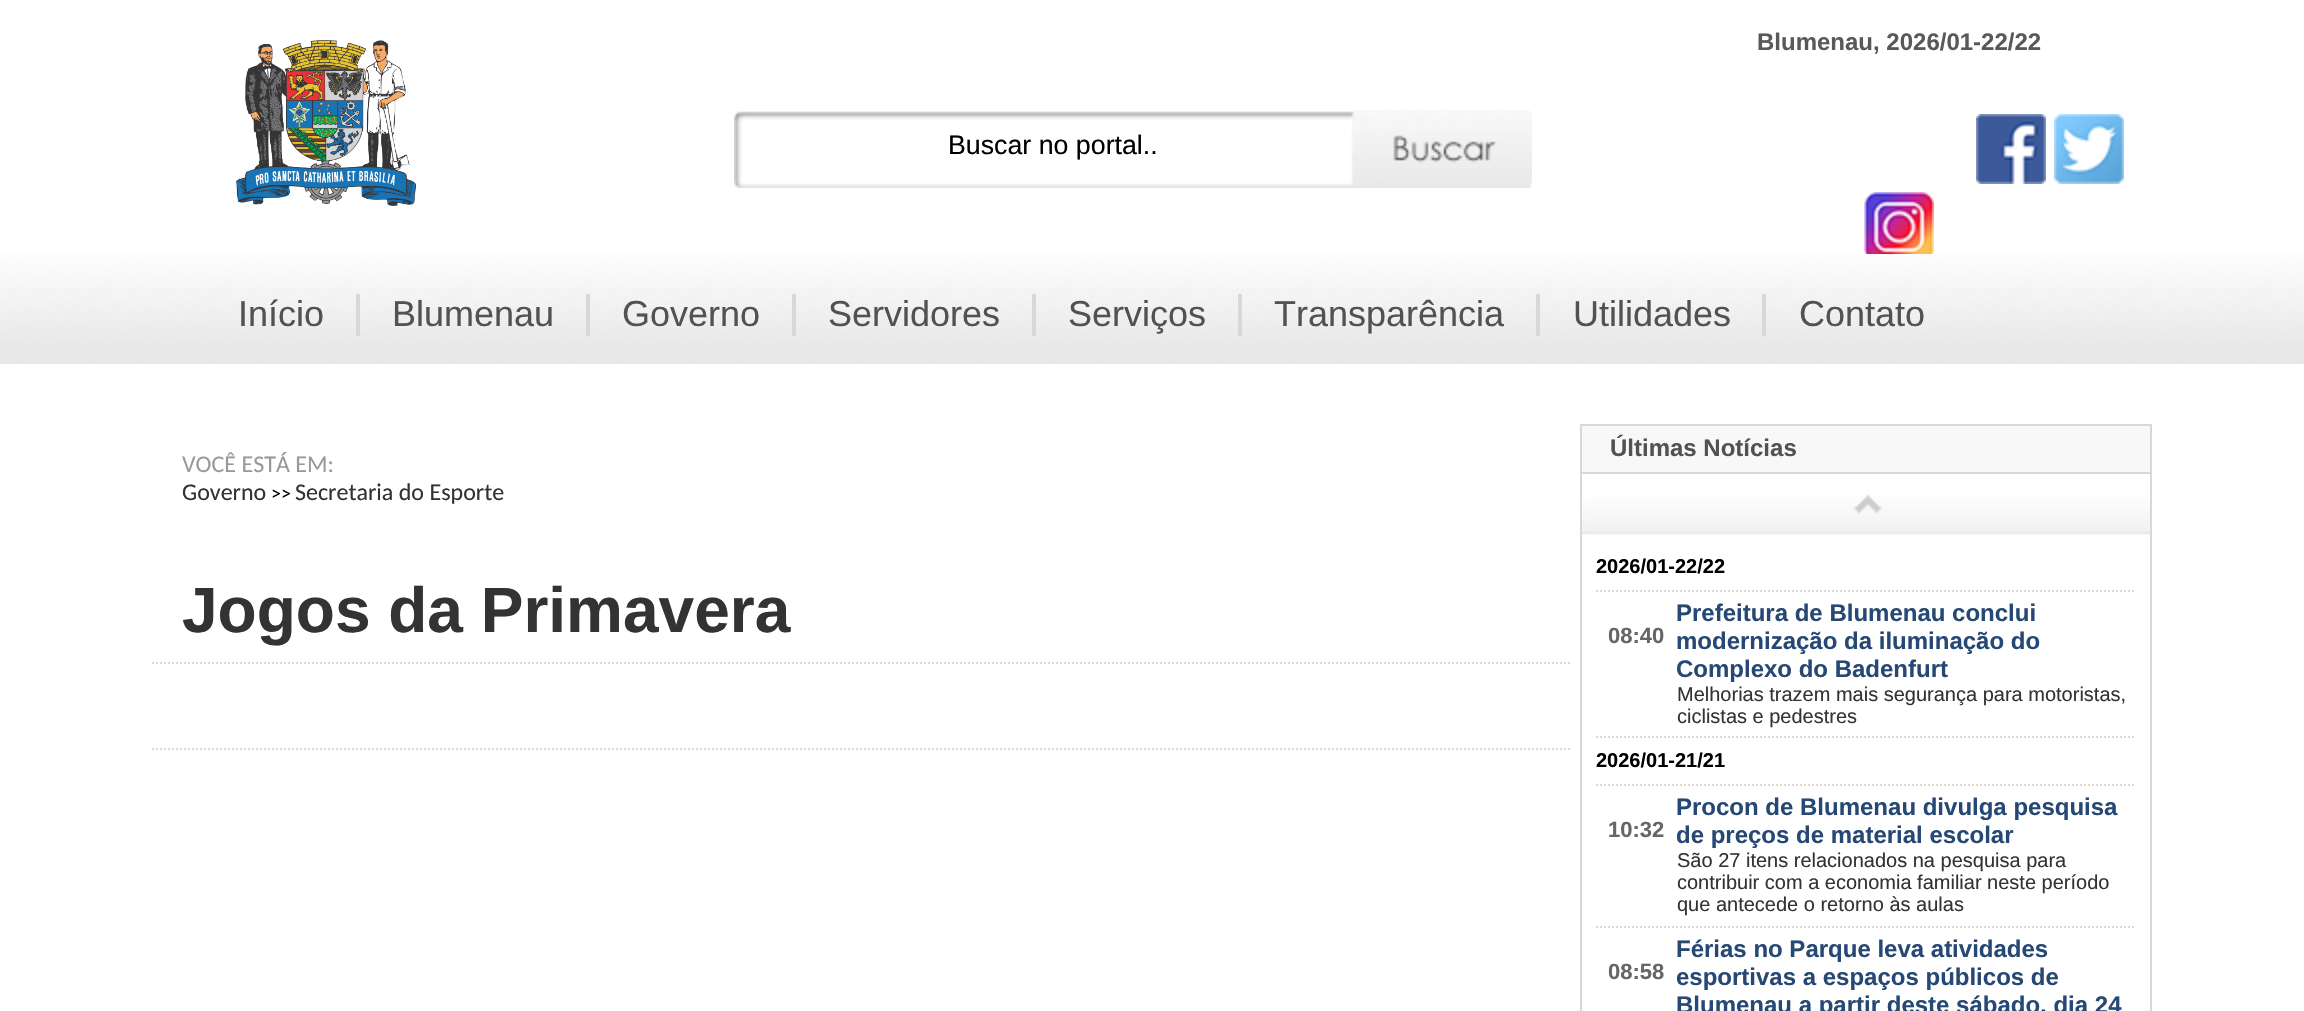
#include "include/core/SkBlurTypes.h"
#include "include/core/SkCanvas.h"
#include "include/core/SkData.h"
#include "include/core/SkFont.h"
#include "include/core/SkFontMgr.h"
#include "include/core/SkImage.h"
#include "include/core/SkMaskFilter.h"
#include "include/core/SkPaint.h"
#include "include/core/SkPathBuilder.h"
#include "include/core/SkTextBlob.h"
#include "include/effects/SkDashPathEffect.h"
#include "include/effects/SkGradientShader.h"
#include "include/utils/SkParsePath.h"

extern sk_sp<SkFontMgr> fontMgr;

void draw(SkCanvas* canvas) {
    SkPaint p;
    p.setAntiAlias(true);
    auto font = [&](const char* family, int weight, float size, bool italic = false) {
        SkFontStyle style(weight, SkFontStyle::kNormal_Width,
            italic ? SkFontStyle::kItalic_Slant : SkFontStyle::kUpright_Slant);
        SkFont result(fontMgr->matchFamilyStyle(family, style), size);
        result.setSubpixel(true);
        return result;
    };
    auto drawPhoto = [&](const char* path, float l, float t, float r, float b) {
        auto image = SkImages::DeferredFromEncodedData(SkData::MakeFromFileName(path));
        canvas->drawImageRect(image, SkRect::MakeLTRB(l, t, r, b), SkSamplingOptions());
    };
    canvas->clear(0xFFFFFFFF);
    drawPhoto("media/1.png", 236, 40, 416, 206);
    drawPhoto("media/2.png", 734, 110, 1532, 188);
    auto font1 = font("Liberation Sans", 400, 26.75f);
    p.setColor(0xFF000000);
    canvas->drawString("Buscar no portal..", 948, 154, font1, p);
    auto font2 = font("Liberation Sans", 700, 24);
    p.setColor(0xFF595959);
    canvas->drawString("Blumenau, 2026/01-22/22", 1757, 50, font2, p);
    drawPhoto("media/3.png", 1976, 114, 2046, 184);
    drawPhoto("media/4.png", 2054, 114, 2124, 184);
    drawPhoto("media/5.png", 1864, 192, 1934, 254);
    drawPhoto("media/6.png", 0, 254, 2304, 364);
    p.setColor(0xFFD8D8D8);
    canvas->drawRect(SkRect::MakeLTRB(356, 294, 360, 336), p);
    auto font3 = font("Liberation Sans", 400, 36);
    p.setColor(0xFF525252);
    canvas->drawString("Início", 238, 326, font3, p);
    p.setColor(0xFFD8D8D8);
    canvas->drawRect(SkRect::MakeLTRB(586, 294, 590, 336), p);
    p.setColor(0xFF525252);
    canvas->drawString("Blumenau", 392, 326, font3, p);
    p.setColor(0xFFD8D8D8);
    canvas->drawRect(SkRect::MakeLTRB(792, 294, 796, 336), p);
    p.setColor(0xFF525252);
    canvas->drawString("Governo", 622, 326, font3, p);
    p.setColor(0xFFD8D8D8);
    canvas->drawRect(SkRect::MakeLTRB(1032, 294, 1036, 336), p);
    p.setColor(0xFF525252);
    canvas->drawString("Servidores", 828, 326, font3, p);
    p.setColor(0xFFD8D8D8);
    canvas->drawRect(SkRect::MakeLTRB(1238, 294, 1242, 336), p);
    p.setColor(0xFF525252);
    canvas->drawString("Serviços", 1068, 326, font3, p);
    p.setColor(0xFFD8D8D8);
    canvas->drawRect(SkRect::MakeLTRB(1536, 294, 1540, 336), p);
    p.setColor(0xFF525252);
    canvas->drawString("Transparência", 1274, 326, font3, p);
    p.setColor(0xFFD8D8D8);
    canvas->drawRect(SkRect::MakeLTRB(1762, 294, 1766, 336), p);
    p.setColor(0xFF525252);
    canvas->drawString("Utilidades", 1573, 326, font3, p);
    canvas->drawString("Contato", 1799, 326, font3, p);
    auto font4 = font("Carlito", 400, 24);
    p.setColor(0xFF999999);
    canvas->drawString("VOCÊ ESTÁ EM:", 182, 472, font4, p);
    p.setColor(0xFF333333);
    canvas->drawString("Governo", 182, 500, font4, p);
    auto font5 = font("Carlito", 400, 20);
    p.setColor(0xFF000000);
    canvas->drawString(">>", 271, 500, font5, p);
    p.setColor(0xFF333333);
    canvas->drawString("Secretaria do Esporte", 295, 500, font4, p);
    auto font6 = font("Liberation Sans", 700, 64);
    canvas->drawString("Jogos da Primavera", 182, 632, font6, p);
    p.setStyle(SkPaint::kStroke_Style);
    p.setStrokeWidth(2);
    p.setColor(0xFFDBD7D2);
    p.setPathEffect(SkDashPathEffect::Make({{2, 2}}, 0));
    canvas->drawPath(SkPathBuilder().moveTo(152, 663).lineTo(1572, 663).detach(), p);
    p.setPathEffect(nullptr);
    p.setPathEffect(SkDashPathEffect::Make({{2, 2}}, 0));
    canvas->drawPath(SkPathBuilder().moveTo(152, 749).lineTo(1572, 749).detach(), p);
    p.setPathEffect(nullptr);
    canvas->drawRect(SkRect::MakeLTRB(1581, 425, 2151, 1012), p);
    p.setStyle(SkPaint::kFill_Style);
    p.setColor(0xFFF8F8F8);
    canvas->drawRect(SkRect::MakeLTRB(1582, 426, 2150, 472), p);
    p.setColor(0xFFDBD7D2);
    canvas->drawRect(SkRect::MakeLTRB(1582, 472, 2150, 474), p);
    p.setColor(0xFF525252);
    canvas->drawString("Últimas Notícias", 1610, 456, font2, p);
    drawPhoto("media/7.png", 1582, 494, 2150, 535);
    p.setStyle(SkPaint::kStroke_Style);
    p.setColor(0xFFDBD7D2);
    p.setPathEffect(SkDashPathEffect::Make({{2, 2}}, 0));
    canvas->drawPath(SkPathBuilder().moveTo(1596, 591).lineTo(2136, 591).detach(), p);
    p.setPathEffect(nullptr);
    auto font7 = font("Liberation Sans", 700, 20);
    p.setStyle(SkPaint::kFill_Style);
    p.setColor(0xFF000000);
    canvas->drawString("2026/01-22/22", 1596, 573, font7, p);
    p.setStyle(SkPaint::kStroke_Style);
    p.setColor(0xFFDBD7D2);
    p.setPathEffect(SkDashPathEffect::Make({{2, 2}}, 0));
    canvas->drawPath(SkPathBuilder().moveTo(1596, 737).lineTo(2136, 737).detach(), p);
    p.setPathEffect(nullptr);
    auto font8 = font("Liberation Sans", 700, 22);
    p.setStyle(SkPaint::kFill_Style);
    p.setColor(0xFF666666);
    canvas->drawString("08:40", 1608, 643, font8, p);
    p.setColor(0xFF264874);
    {
        const struct { const char* s; float x, y; } items[] = {
            {"Prefeitura de Blumenau conclui", 1676, 621},
            {"modernização da iluminação do", 1676, 649},
            {"Complexo do Badenfurt", 1676, 677},
        };
        for (auto [s, x, y] : items) {
            canvas->drawString(s, x, y, font2, p);
        }
    }
    auto font9 = font("Liberation Sans", 400, 20);
    p.setColor(0xFF333333);
    canvas->drawString("Melhorias trazem mais segurança para motoristas,", 1677, 701, font9, p);
    canvas->drawString("ciclistas e pedestres", 1677, 723, font9, p);
    p.setStyle(SkPaint::kStroke_Style);
    p.setColor(0xFFDBD7D2);
    p.setPathEffect(SkDashPathEffect::Make({{2, 2}}, 0));
    canvas->drawPath(SkPathBuilder().moveTo(1596, 785).lineTo(2136, 785).detach(), p);
    p.setPathEffect(nullptr);
    p.setStyle(SkPaint::kFill_Style);
    p.setColor(0xFF000000);
    canvas->drawString("2026/01-21/21", 1596, 767, font7, p);
    p.setStyle(SkPaint::kStroke_Style);
    p.setColor(0xFFDBD7D2);
    p.setPathEffect(SkDashPathEffect::Make({{2, 2}}, 0));
    canvas->drawPath(SkPathBuilder().moveTo(1596, 927).lineTo(2136, 927).detach(), p);
    p.setPathEffect(nullptr);
    p.setStyle(SkPaint::kFill_Style);
    p.setColor(0xFF666666);
    canvas->drawString("10:32", 1608, 837, font8, p);
    p.setColor(0xFF264874);
    canvas->drawString("Procon de Blumenau divulga pesquisa", 1676, 815, font2, p);
    canvas->drawString("de preços de material escolar", 1676, 843, font2, p);
    p.setColor(0xFF333333);
    {
        const struct { const char* s; float x, y; } items[] = {
            {"São 27 itens relacionados na pesquisa para", 1677, 867},
            {"contribuir com a economia familiar neste período", 1677, 889},
            {"que antecede o retorno às aulas", 1677, 911},
        };
        for (auto [s, x, y] : items) {
            canvas->drawString(s, x, y, font9, p);
        }
    }
    p.setColor(0xFF666666);
    canvas->drawString("08:58", 1608, 979, font8, p);
    p.setColor(0xFF264874);
    {
        const struct { const char* s; float x, y; } items[] = {
            {"Férias no Parque leva atividades", 1676, 957},
            {"esportivas a espaços públicos de", 1676, 985},
            {"Blumenau a partir deste sábado, dia 24", 1676, 1013},
        };
        for (auto [s, x, y] : items) {
            canvas->drawString(s, x, y, font2, p);
        }
    }
}
